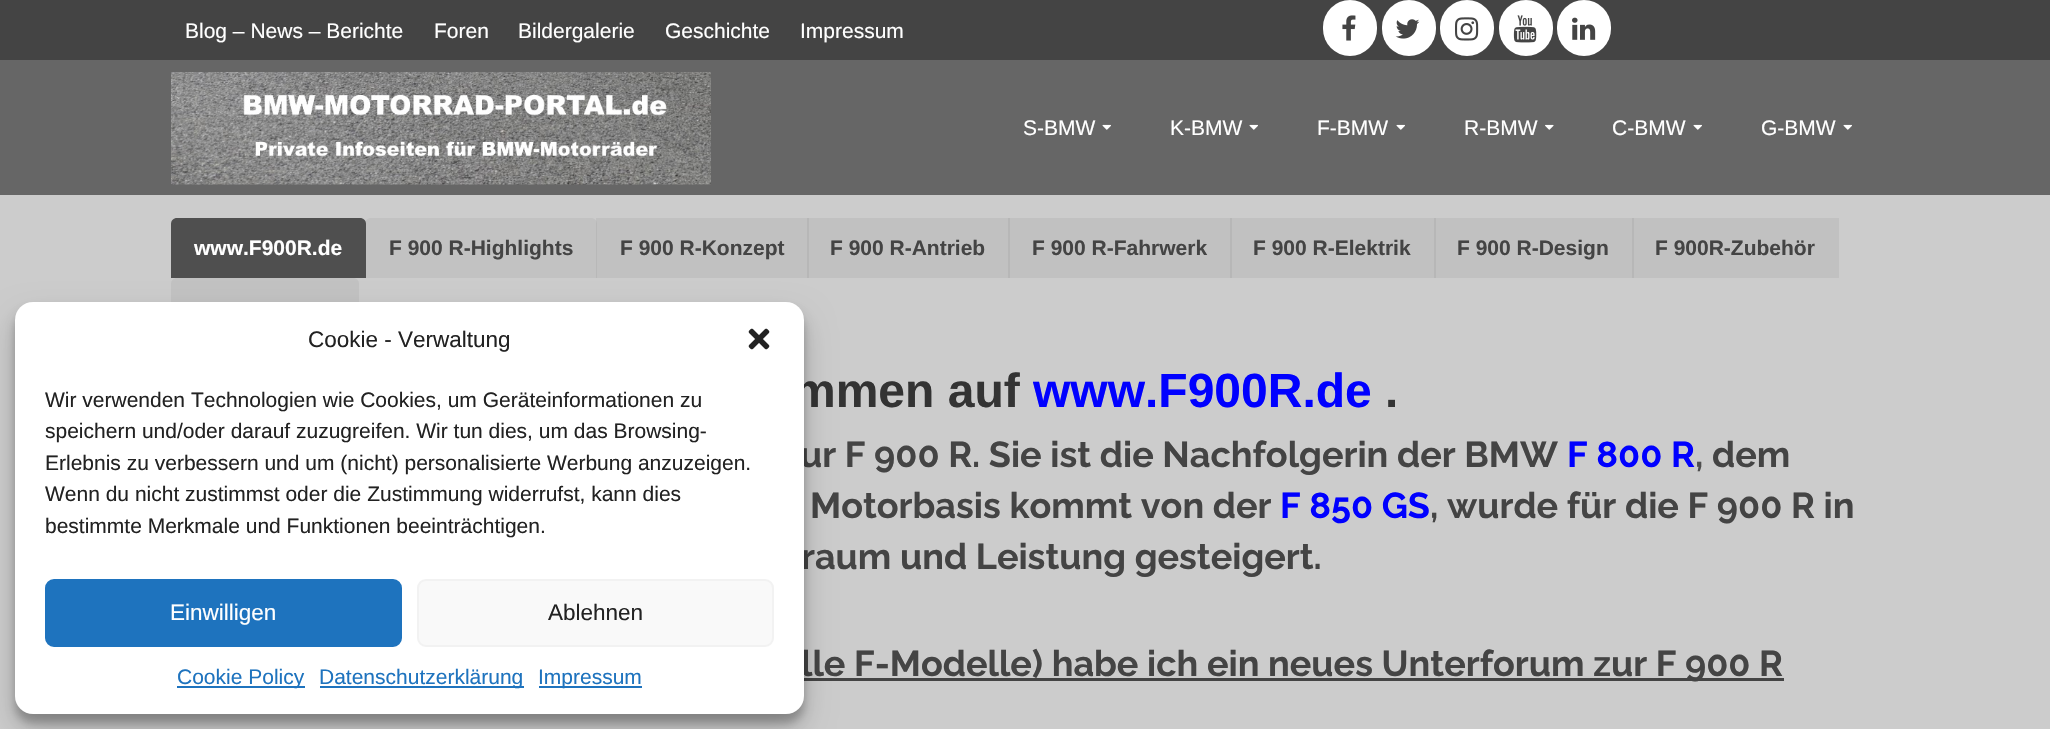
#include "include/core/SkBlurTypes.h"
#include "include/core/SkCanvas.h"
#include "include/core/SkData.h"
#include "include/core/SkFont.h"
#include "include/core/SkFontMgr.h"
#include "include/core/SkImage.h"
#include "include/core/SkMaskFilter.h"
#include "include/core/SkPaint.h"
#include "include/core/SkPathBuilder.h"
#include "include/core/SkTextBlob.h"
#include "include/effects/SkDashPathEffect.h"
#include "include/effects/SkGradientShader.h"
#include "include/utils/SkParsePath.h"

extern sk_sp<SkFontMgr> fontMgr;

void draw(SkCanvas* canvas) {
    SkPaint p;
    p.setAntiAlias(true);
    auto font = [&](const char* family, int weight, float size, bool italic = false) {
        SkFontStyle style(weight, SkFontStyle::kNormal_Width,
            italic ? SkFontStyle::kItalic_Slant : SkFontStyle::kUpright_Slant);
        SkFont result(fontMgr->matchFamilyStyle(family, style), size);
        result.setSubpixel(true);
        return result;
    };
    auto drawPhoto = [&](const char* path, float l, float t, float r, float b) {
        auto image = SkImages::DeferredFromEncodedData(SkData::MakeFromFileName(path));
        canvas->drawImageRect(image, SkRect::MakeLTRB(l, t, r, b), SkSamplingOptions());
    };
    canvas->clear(0xFF666666);
    p.setColor(0xFF444444);
    canvas->drawRect(SkRect::MakeLTRB(0, 0, 2050, 60), p);
    auto font1 = font("Liberation Sans", 400, 21);
    p.setColor(0xFFFFFFFF);
    {
        const struct { const char* s; float x, y; } items[] = {
            {"Blog – News – Berichte", 185, 38},
            {"Foren", 434, 38},
            {"Bildergalerie", 518, 38},
            {"Geschichte", 665, 38},
            {"Impressum", 800, 38},
        };
        for (auto [s, x, y] : items) {
            canvas->drawString(s, x, y, font1, p);
        }
    }
    canvas->drawRoundRect(SkRect::MakeLTRB(1323, 0, 1377, 56), 27, 27, p);
    drawPhoto("media/1.png", 1342, 15, 1356, 41);
    canvas->drawRoundRect(SkRect::MakeLTRB(1382, 0, 1436, 56), 27, 27, p);
    drawPhoto("media/2.png", 1395, 19, 1420, 39);
    canvas->drawRoundRect(SkRect::MakeLTRB(1440, 0, 1494, 56), 27, 27, p);
    drawPhoto("media/3.png", 1455, 17, 1479, 41);
    canvas->drawRoundRect(SkRect::MakeLTRB(1499, 0, 1553, 56), 27, 27, p);
    drawPhoto("media/4.png", 1513, 15, 1537, 43);
    canvas->drawRoundRect(SkRect::MakeLTRB(1557, 0, 1611, 56), 27, 27, p);
    drawPhoto("media/5.png", 1572, 17, 1596, 40);
    drawPhoto("media/6.png", 171, 72, 711, 185);
    canvas->drawString("S-BMW", 1023, 135, font1, p);
    drawPhoto("media/7.png", 1102, 124, 1111, 130);
    canvas->drawString("K-BMW", 1170, 135, font1, p);
    drawPhoto("media/7.png", 1249, 124, 1258, 130);
    canvas->drawString("F-BMW", 1317, 135, font1, p);
    drawPhoto("media/7.png", 1396, 124, 1405, 130);
    canvas->drawString("R-BMW", 1464, 135, font1, p);
    drawPhoto("media/8.png", 1545, 124, 1554, 130);
    canvas->drawString("C-BMW", 1612, 135, font1, p);
    drawPhoto("media/7.png", 1693, 124, 1702, 130);
    canvas->drawString("G-BMW", 1761, 135, font1, p);
    drawPhoto("media/7.png", 1843, 124, 1852, 130);
    p.setColor(0xFFCCCCCC);
    canvas->drawRect(SkRect::MakeLTRB(0, 195, 2050, 729), p);
    p.setColor(0xFFC2C2C2);
    canvas->drawPath(SkPathBuilder().moveTo(371, 218).lineTo(591, 218).cubicTo(594.5f, 218, 597, 220.5f, 597, 224).lineTo(597, 278).lineTo(365, 278).lineTo(365, 224).cubicTo(365, 220.5f, 367.5f, 218, 371, 218).close().detach(), p);
    p.setColor(0xFF4F4F4F);
    canvas->drawPath(SkPathBuilder().moveTo(177, 218).lineTo(360, 218).cubicTo(363.5f, 218, 366, 220.5f, 366, 224).lineTo(366, 278).lineTo(171, 278).lineTo(171, 224).cubicTo(171, 220.5f, 173.5f, 218, 177, 218).close().detach(), p);
    auto font2 = font("Liberation Sans", 700, 21);
    p.setColor(0xFFFFFFFF);
    canvas->drawString("www.F900R.de", 194, 255, font2, p);
    p.setColor(0xFF444444);
    canvas->drawString("F 900 R-Highlights", 389, 255, font2, p);
    p.setColor(0x0D000000);
    canvas->drawRect(SkRect::MakeLTRB(596, 218, 809, 278), p);
    p.setColor(0xFF444444);
    canvas->drawString("F 900 R-Konzept", 620, 255, font2, p);
    p.setColor(0x0D000000);
    canvas->drawRect(SkRect::MakeLTRB(807, 218, 1010, 278), p);
    p.setColor(0xFF444444);
    canvas->drawString("F 900 R-Antrieb", 830, 255, font2, p);
    p.setColor(0x0D000000);
    canvas->drawRect(SkRect::MakeLTRB(1008, 218, 1232, 278), p);
    p.setColor(0xFF444444);
    canvas->drawString("F 900 R-Fahrwerk", 1032, 255, font2, p);
    p.setColor(0x0D000000);
    canvas->drawRect(SkRect::MakeLTRB(1230, 218, 1436, 278), p);
    p.setColor(0xFF444444);
    canvas->drawString("F 900 R-Elektrik", 1253, 255, font2, p);
    p.setColor(0x0D000000);
    canvas->drawRect(SkRect::MakeLTRB(1434, 218, 1634, 278), p);
    p.setColor(0xFF444444);
    canvas->drawString("F 900 R-Design", 1457, 255, font2, p);
    p.setColor(0x0D000000);
    canvas->drawRect(SkRect::MakeLTRB(1632, 218, 1839, 278), p);
    p.setColor(0xFF444444);
    canvas->drawString("F 900R-Zubehör", 1655, 255, font2, p);
    p.setColor(0xFFC2C2C2);
    canvas->drawPath(SkPathBuilder().moveTo(177, 278).lineTo(353, 278).cubicTo(356.5f, 278, 359, 280.5f, 359, 284).lineTo(359, 338).lineTo(171, 338).lineTo(171, 284).cubicTo(171, 280.5f, 173.5f, 278, 177, 278).close().detach(), p);
    auto font3 = font("Liberation Sans", 700, 48);
    p.setColor(0xFF333333);
    canvas->drawString("mmen auf", 793, 407, font3, p);
    p.setColor(0xFF0000FF);
    canvas->drawString("www.F900R.de", 1033, 407, font3, p);
    p.setColor(0xFF333333);
    canvas->drawString(".", 1385, 407, font3, p);
    auto font4 = font("Raleway", 700, 36);
    p.setColor(0xFF444444);
    canvas->drawString("ur F 900 R. Sie ist die Nachfolgerin der BMW", 800, 467, font4, p);
    p.setColor(0xFF0000FF);
    canvas->drawString("F 800 R", 1567, 467, font4, p);
    p.setColor(0xFF4F4F4F);
    canvas->drawString(",", 1695, 467, font4, p);
    p.setColor(0xFF444444);
    canvas->drawString("dem", 1712, 467, font4, p);
    canvas->drawString("Motorbasis kommt von der", 810, 518, font4, p);
    p.setColor(0xFF0000FF);
    canvas->drawString("F 850 GS", 1280, 518, font4, p);
    p.setColor(0xFF444444);
    canvas->drawString(", wurde für die F 900 R in", 1430, 518, font4, p);
    canvas->drawString("raum und Leistung gesteigert.", 801, 569, font4, p);
    canvas->drawRect(SkRect::MakeLTRB(804, 678, 1784, 681), p);
    canvas->drawString("lle F-Modelle) habe ich ein neues Unterforum zur F 900 R", 801, 676, font4, p);
    p.setColor(0x3B000000);
    p.setMaskFilter(SkMaskFilter::MakeBlur(kNormal_SkBlurStyle, 4.5f));
    canvas->drawRoundRect(SkRect::MakeLTRB(15, 311, 804, 723), 18, 18, p);
    p.setMaskFilter(nullptr);
    p.setColor(0x30000000);
    p.setMaskFilter(SkMaskFilter::MakeBlur(kNormal_SkBlurStyle, 15));
    canvas->drawRoundRect(SkRect::MakeLTRB(15, 317, 804, 729), 18, 18, p);
    p.setMaskFilter(nullptr);
    p.setColor(0xFFFFFFFF);
    canvas->drawRoundRect(SkRect::MakeLTRB(15, 302, 804, 714), 18, 18, p);
    auto font5 = font("Liberation Sans", 400, 22.5f);
    p.setColor(0xFF222222);
    canvas->drawString("Cookie - Verwaltung", 308, 347, font5, p);
    drawPhoto("media/9.png", 748, 328, 770, 350);
    {
        const struct { const char* s; float x, y; } items[] = {
            {"Wir verwenden Technologien wie Cookies, um Geräteinformationen zu", 45, 407},
            {"speichern und/oder darauf zuzugreifen. Wir tun dies, um das Browsing-", 45, 438},
            {"Erlebnis zu verbessern und um (nicht) personalisierte Werbung anzuzeigen.", 45, 470},
            {"Wenn du nicht zustimmst oder die Zustimmung widerrufst, kann dies", 45, 501},
            {"bestimmte Merkmale und Funktionen beeinträchtigen.", 45, 533},
        };
        for (auto [s, x, y] : items) {
            canvas->drawString(s, x, y, font1, p);
        }
    }
    p.setColor(0xFF1E73BE);
    canvas->drawRoundRect(SkRect::MakeLTRB(46, 580, 401, 646), 8, 8, p);
    p.setStyle(SkPaint::kStroke_Style);
    p.setStrokeWidth(2);
    canvas->drawRoundRect(SkRect::MakeLTRB(46, 580, 401, 646), 8, 8, p);
    p.setStyle(SkPaint::kFill_Style);
    p.setColor(0xFFFFFFFF);
    canvas->drawString("Einwilligen", 170, 620, font5, p);
    p.setColor(0xFFF9F9F9);
    canvas->drawRoundRect(SkRect::MakeLTRB(418, 580, 773, 646), 8, 8, p);
    p.setStyle(SkPaint::kStroke_Style);
    p.setColor(0xFFF2F2F2);
    canvas->drawRoundRect(SkRect::MakeLTRB(418, 580, 773, 646), 8, 8, p);
    p.setStyle(SkPaint::kFill_Style);
    p.setColor(0xFF222222);
    canvas->drawString("Ablehnen", 548, 620, font5, p);
    p.setColor(0xFF1E73BE);
    canvas->drawRect(SkRect::MakeLTRB(177, 686, 305, 688), p);
    canvas->drawString("Cookie Policy", 177, 684, font1, p);
    canvas->drawRect(SkRect::MakeLTRB(320, 686, 524, 688), p);
    canvas->drawString("Datenschutzerklärung", 319, 684, font1, p);
    canvas->drawRect(SkRect::MakeLTRB(539, 686, 642, 688), p);
    canvas->drawString("Impressum", 538, 684, font1, p);
}
